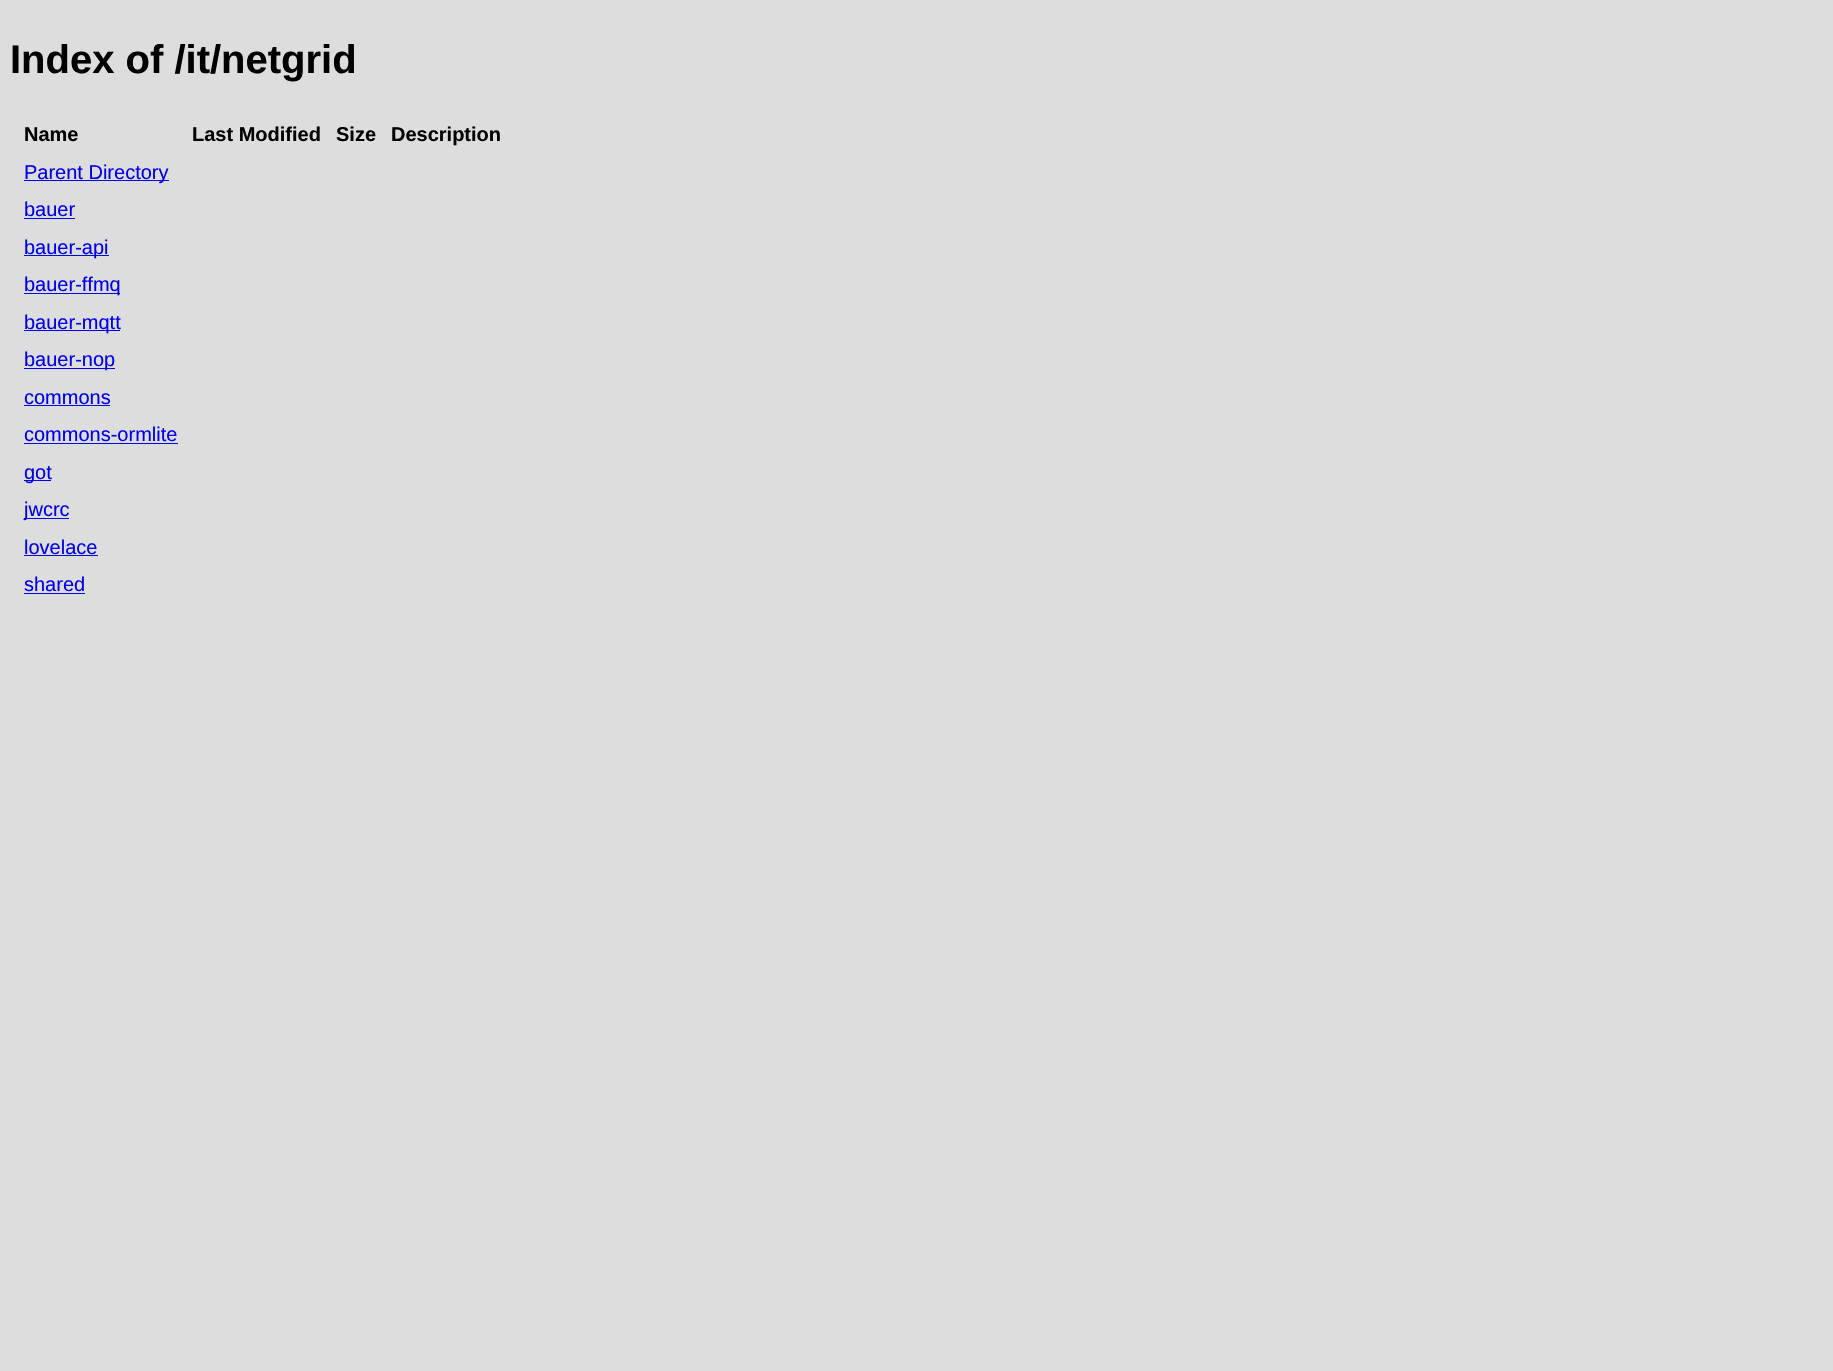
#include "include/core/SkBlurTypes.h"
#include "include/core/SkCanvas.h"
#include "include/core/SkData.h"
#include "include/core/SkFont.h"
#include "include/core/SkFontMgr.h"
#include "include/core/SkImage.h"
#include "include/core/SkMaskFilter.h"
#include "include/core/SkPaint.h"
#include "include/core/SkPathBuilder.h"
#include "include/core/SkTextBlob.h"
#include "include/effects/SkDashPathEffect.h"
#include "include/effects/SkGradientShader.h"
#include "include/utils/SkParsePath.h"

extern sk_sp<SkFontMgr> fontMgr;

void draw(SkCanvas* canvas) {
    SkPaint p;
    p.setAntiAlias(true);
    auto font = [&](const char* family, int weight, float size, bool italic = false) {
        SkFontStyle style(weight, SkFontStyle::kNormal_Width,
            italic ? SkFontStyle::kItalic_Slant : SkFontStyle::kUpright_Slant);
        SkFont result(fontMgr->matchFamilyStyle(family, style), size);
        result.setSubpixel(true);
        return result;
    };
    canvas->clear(0xFFDDDDDD);
    auto font1 = font("Liberation Sans", 700, 40);
    p.setColor(0xFF000000);
    canvas->drawString("Index of /it/netgrid", 10, 73, font1, p);
    auto font2 = font("Liberation Sans", 700, 20);
    {
        const struct { const char* s; float x, y; } items[] = {
            {"Name", 24, 141},
            {"Last Modified", 192, 141},
            {"Size", 336, 141},
            {"Description", 391, 141},
        };
        for (auto [s, x, y] : items) {
            canvas->drawString(s, x, y, font2, p);
        }
    }
    p.setColor(0xFF0000EE);
    canvas->drawRect(SkRect::MakeLTRB(24, 180, 169, 181), p);
    auto font3 = font("Liberation Sans", 400, 20);
    canvas->drawString("Parent Directory", 24, 179, font3, p);
    canvas->drawString("bauer", 24, 216, font3, p);
    canvas->drawRect(SkRect::MakeLTRB(24, 218, 75, 219), p);
    canvas->drawRect(SkRect::MakeLTRB(24, 255, 109, 256), p);
    canvas->drawString("bauer-api", 24, 254, font3, p);
    canvas->drawRect(SkRect::MakeLTRB(24, 293, 120, 294), p);
    canvas->drawString("bauer-ffmq", 24, 291, font3, p);
    canvas->drawRect(SkRect::MakeLTRB(24, 330, 120, 331), p);
    canvas->drawString("bauer-mqtt", 24, 329, font3, p);
    canvas->drawRect(SkRect::MakeLTRB(24, 368, 115, 369), p);
    canvas->drawString("bauer-nop", 24, 366, font3, p);
    canvas->drawString("commons", 24, 404, font3, p);
    canvas->drawRect(SkRect::MakeLTRB(24, 405, 110, 406), p);
    canvas->drawString("commons-ormlite", 24, 441, font3, p);
    canvas->drawRect(SkRect::MakeLTRB(24, 443, 178, 444), p);
    canvas->drawRect(SkRect::MakeLTRB(24, 480, 51, 481), p);
    canvas->drawString("got", 24, 479, font3, p);
    canvas->drawRect(SkRect::MakeLTRB(24, 518, 69, 519), p);
    canvas->drawString("jwcrc", 24, 516, font3, p);
    canvas->drawString("lovelace", 24, 554, font3, p);
    canvas->drawRect(SkRect::MakeLTRB(24, 555, 98, 556), p);
    canvas->drawString("shared", 24, 591, font3, p);
    canvas->drawRect(SkRect::MakeLTRB(24, 593, 85, 594), p);
}
